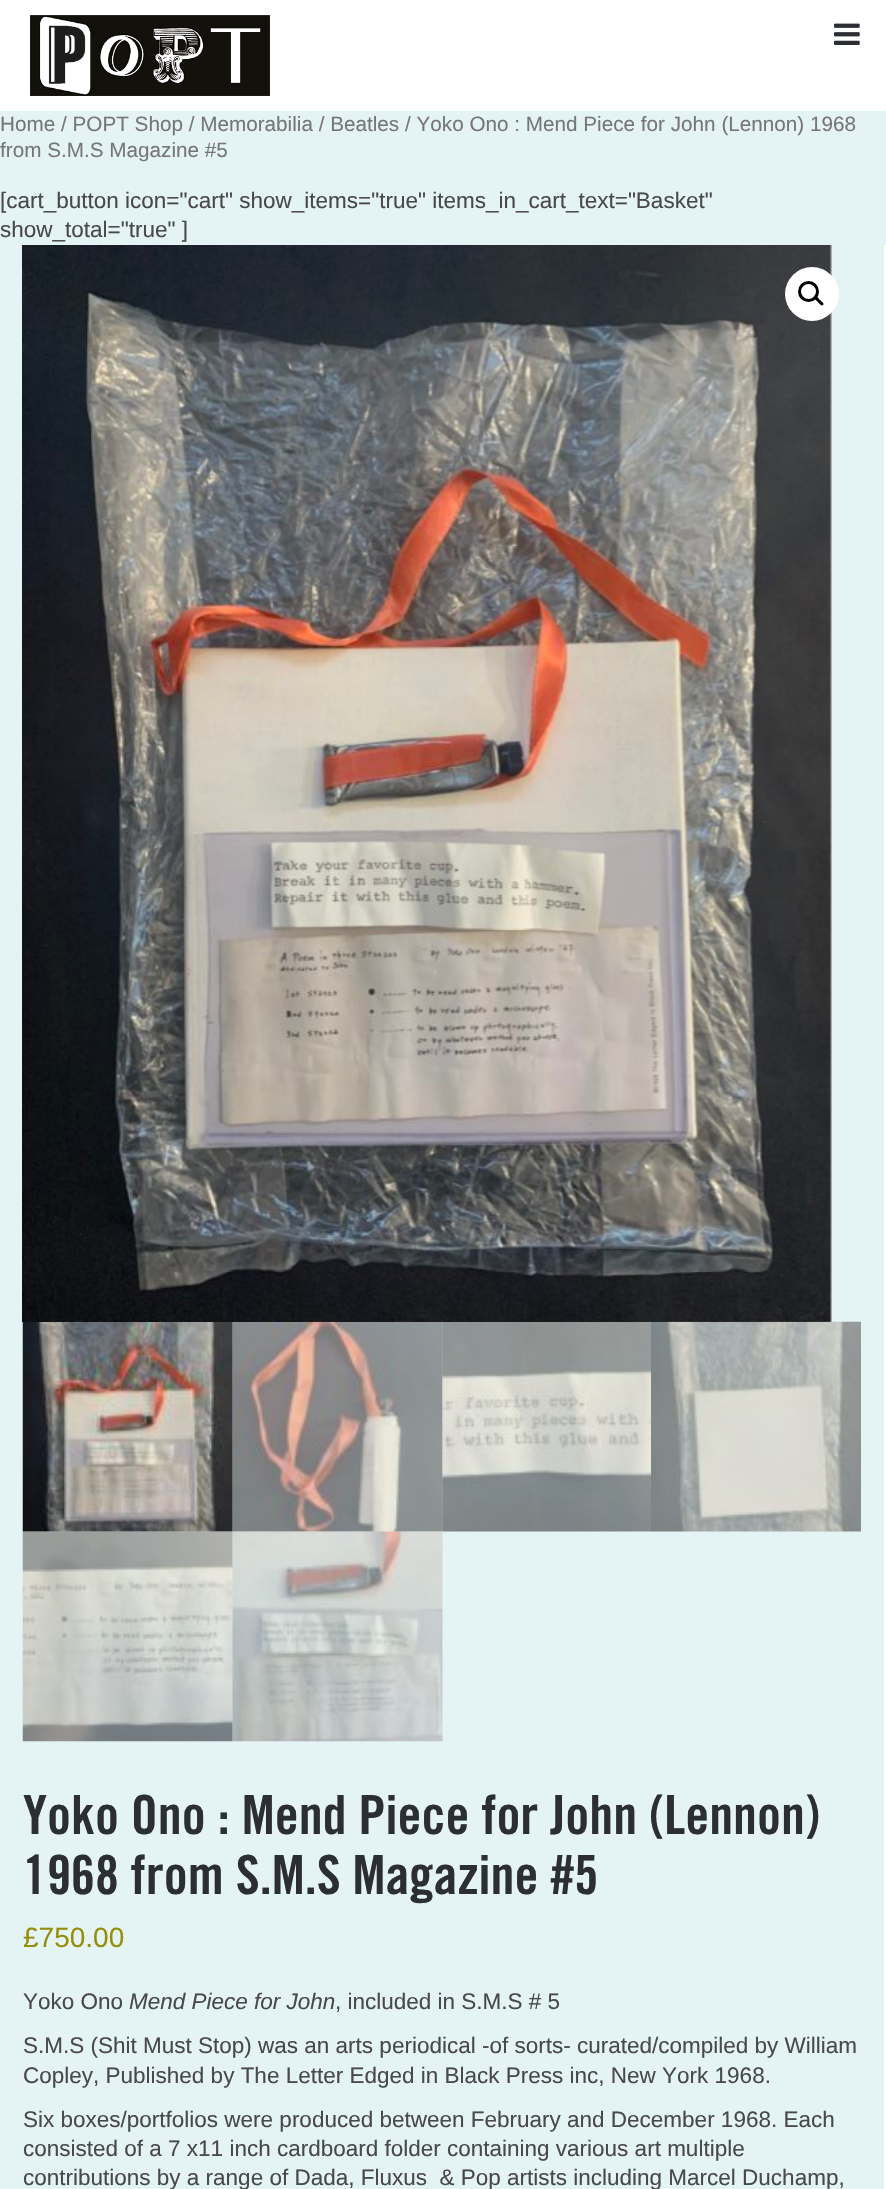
#include "include/core/SkBlurTypes.h"
#include "include/core/SkCanvas.h"
#include "include/core/SkData.h"
#include "include/core/SkFont.h"
#include "include/core/SkFontMgr.h"
#include "include/core/SkImage.h"
#include "include/core/SkMaskFilter.h"
#include "include/core/SkPaint.h"
#include "include/core/SkPathBuilder.h"
#include "include/core/SkTextBlob.h"
#include "include/effects/SkDashPathEffect.h"
#include "include/effects/SkGradientShader.h"
#include "include/utils/SkParsePath.h"

extern sk_sp<SkFontMgr> fontMgr;

void draw(SkCanvas* canvas) {
    SkPaint p;
    p.setAntiAlias(true);
    auto font = [&](const char* family, int weight, float size, bool italic = false) {
        SkFontStyle style(weight, SkFontStyle::kNormal_Width,
            italic ? SkFontStyle::kItalic_Slant : SkFontStyle::kUpright_Slant);
        SkFont result(fontMgr->matchFamilyStyle(family, style), size);
        result.setSubpixel(true);
        return result;
    };
    auto drawPhoto = [&](const char* path, float l, float t, float r, float b) {
        auto image = SkImages::DeferredFromEncodedData(SkData::MakeFromFileName(path));
        canvas->drawImageRect(image, SkRect::MakeLTRB(l, t, r, b), SkSamplingOptions());
    };
    canvas->clear(0xFFE4F3F4);
    p.setColor(0xFFFFFFFF);
    canvas->drawRect(SkRect::MakeLTRB(0, 0, 886, 111), p);
    drawPhoto("media/1.png", 30, 15, 270, 96);
    drawPhoto("media/2.png", 834, 23, 860, 45);
    auto font1 = font("Liberation Sans", 400, 20.7f);
    p.setColor(0xFF767676);
    canvas->drawString("Home / POPT Shop / Memorabilia / Beatles / Yoko Ono : Mend Piece for John (Lennon) 1968", 0, 131, font1, p);
    canvas->drawString("from S.M.S Magazine #5", 0, 157, font1, p);
    auto font2 = font("Liberation Sans", 400, 22.5f);
    p.setColor(0xFF494949);
    canvas->drawString("[cart_button icon=\"cart\" show_items=\"true\" items_in_cart_text=\"Basket\"", 0, 208, font2, p);
    canvas->drawString("show_total=\"true\" ]", 0, 237, font2, p);
    p.setColor(0xFFFFFFFF);
    canvas->drawRect(SkRect::MakeLTRB(884, 245, 886, 2189), p);
    drawPhoto("media/3.png", 22, 245, 832, 1322);
    canvas->drawCircle(812, 294, 27, p);
    p.setStyle(SkPaint::kStroke_Style);
    p.setStrokeWidth(3);
    p.setColor(0xFF000000);
    canvas->drawCircle(808.5f, 291.5f, 9, p);
    p.setStyle(SkPaint::kFill_Style);
    canvas->drawPath(SkPathBuilder().moveTo(815, 296.5f).cubicTo(816.5f, 295, 819, 299, 820, 300).cubicTo(821, 301, 825, 303.5f, 823, 305).cubicTo(821.5f, 307, 819, 303, 818, 302).cubicTo(817, 301, 813, 298.5f, 815, 296.5f).close().detach(), p);
    drawPhoto("media/4.png", 22, 1322, 233, 1532);
    drawPhoto("media/5.png", 232, 1321, 443, 1532);
    drawPhoto("media/6.png", 442, 1321, 651, 1532);
    drawPhoto("media/7.png", 651, 1321, 861, 1532);
    drawPhoto("media/8.png", 22, 1531, 233, 1742);
    drawPhoto("media/9.png", 232, 1531, 443, 1742);
    auto font3 = font("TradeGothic", 700, 54);
    p.setColor(0xFF2B2E32);
    canvas->drawString("Yoko Ono : Mend Piece for John (Lennon)", 23, 1834, font3, p);
    canvas->drawString("1968 from S.M.S Magazine #5", 23, 1894, font3, p);
    auto font4 = font("Liberation Sans", 400, 28);
    p.setColor(0xFF958E09);
    canvas->drawString("£750.00", 23, 1947, font4, p);
    p.setColor(0xFF494949);
    canvas->drawString("Yoko Ono", 23, 2009, font2, p);
    auto font5 = font("Liberation Sans", 400, 22.5f, true);
    canvas->drawString("Mend Piece for John", 129, 2009, font5, p);
    {
        const struct { const char* s; float x, y; } items[] = {
            {", included in S.M.S # 5", 335, 2009},
            {"S.M.S (Shit Must Stop) was an arts periodical -of sorts- curated/compiled by William", 23, 2053},
            {"Copley, Published by The Letter Edged in Black Press inc, New York 1968.", 23, 2083},
            {"Six boxes/portfolios were produced between February and December 1968. Each", 23, 2127},
            {"consisted of a 7 x11 inch cardboard folder containing various art multiple", 23, 2156},
            {"contributions by a range of Dada, Fluxus  & Pop artists including Marcel Duchamp,", 23, 2185},
        };
        for (auto [s, x, y] : items) {
            canvas->drawString(s, x, y, font2, p);
        }
    }
}
